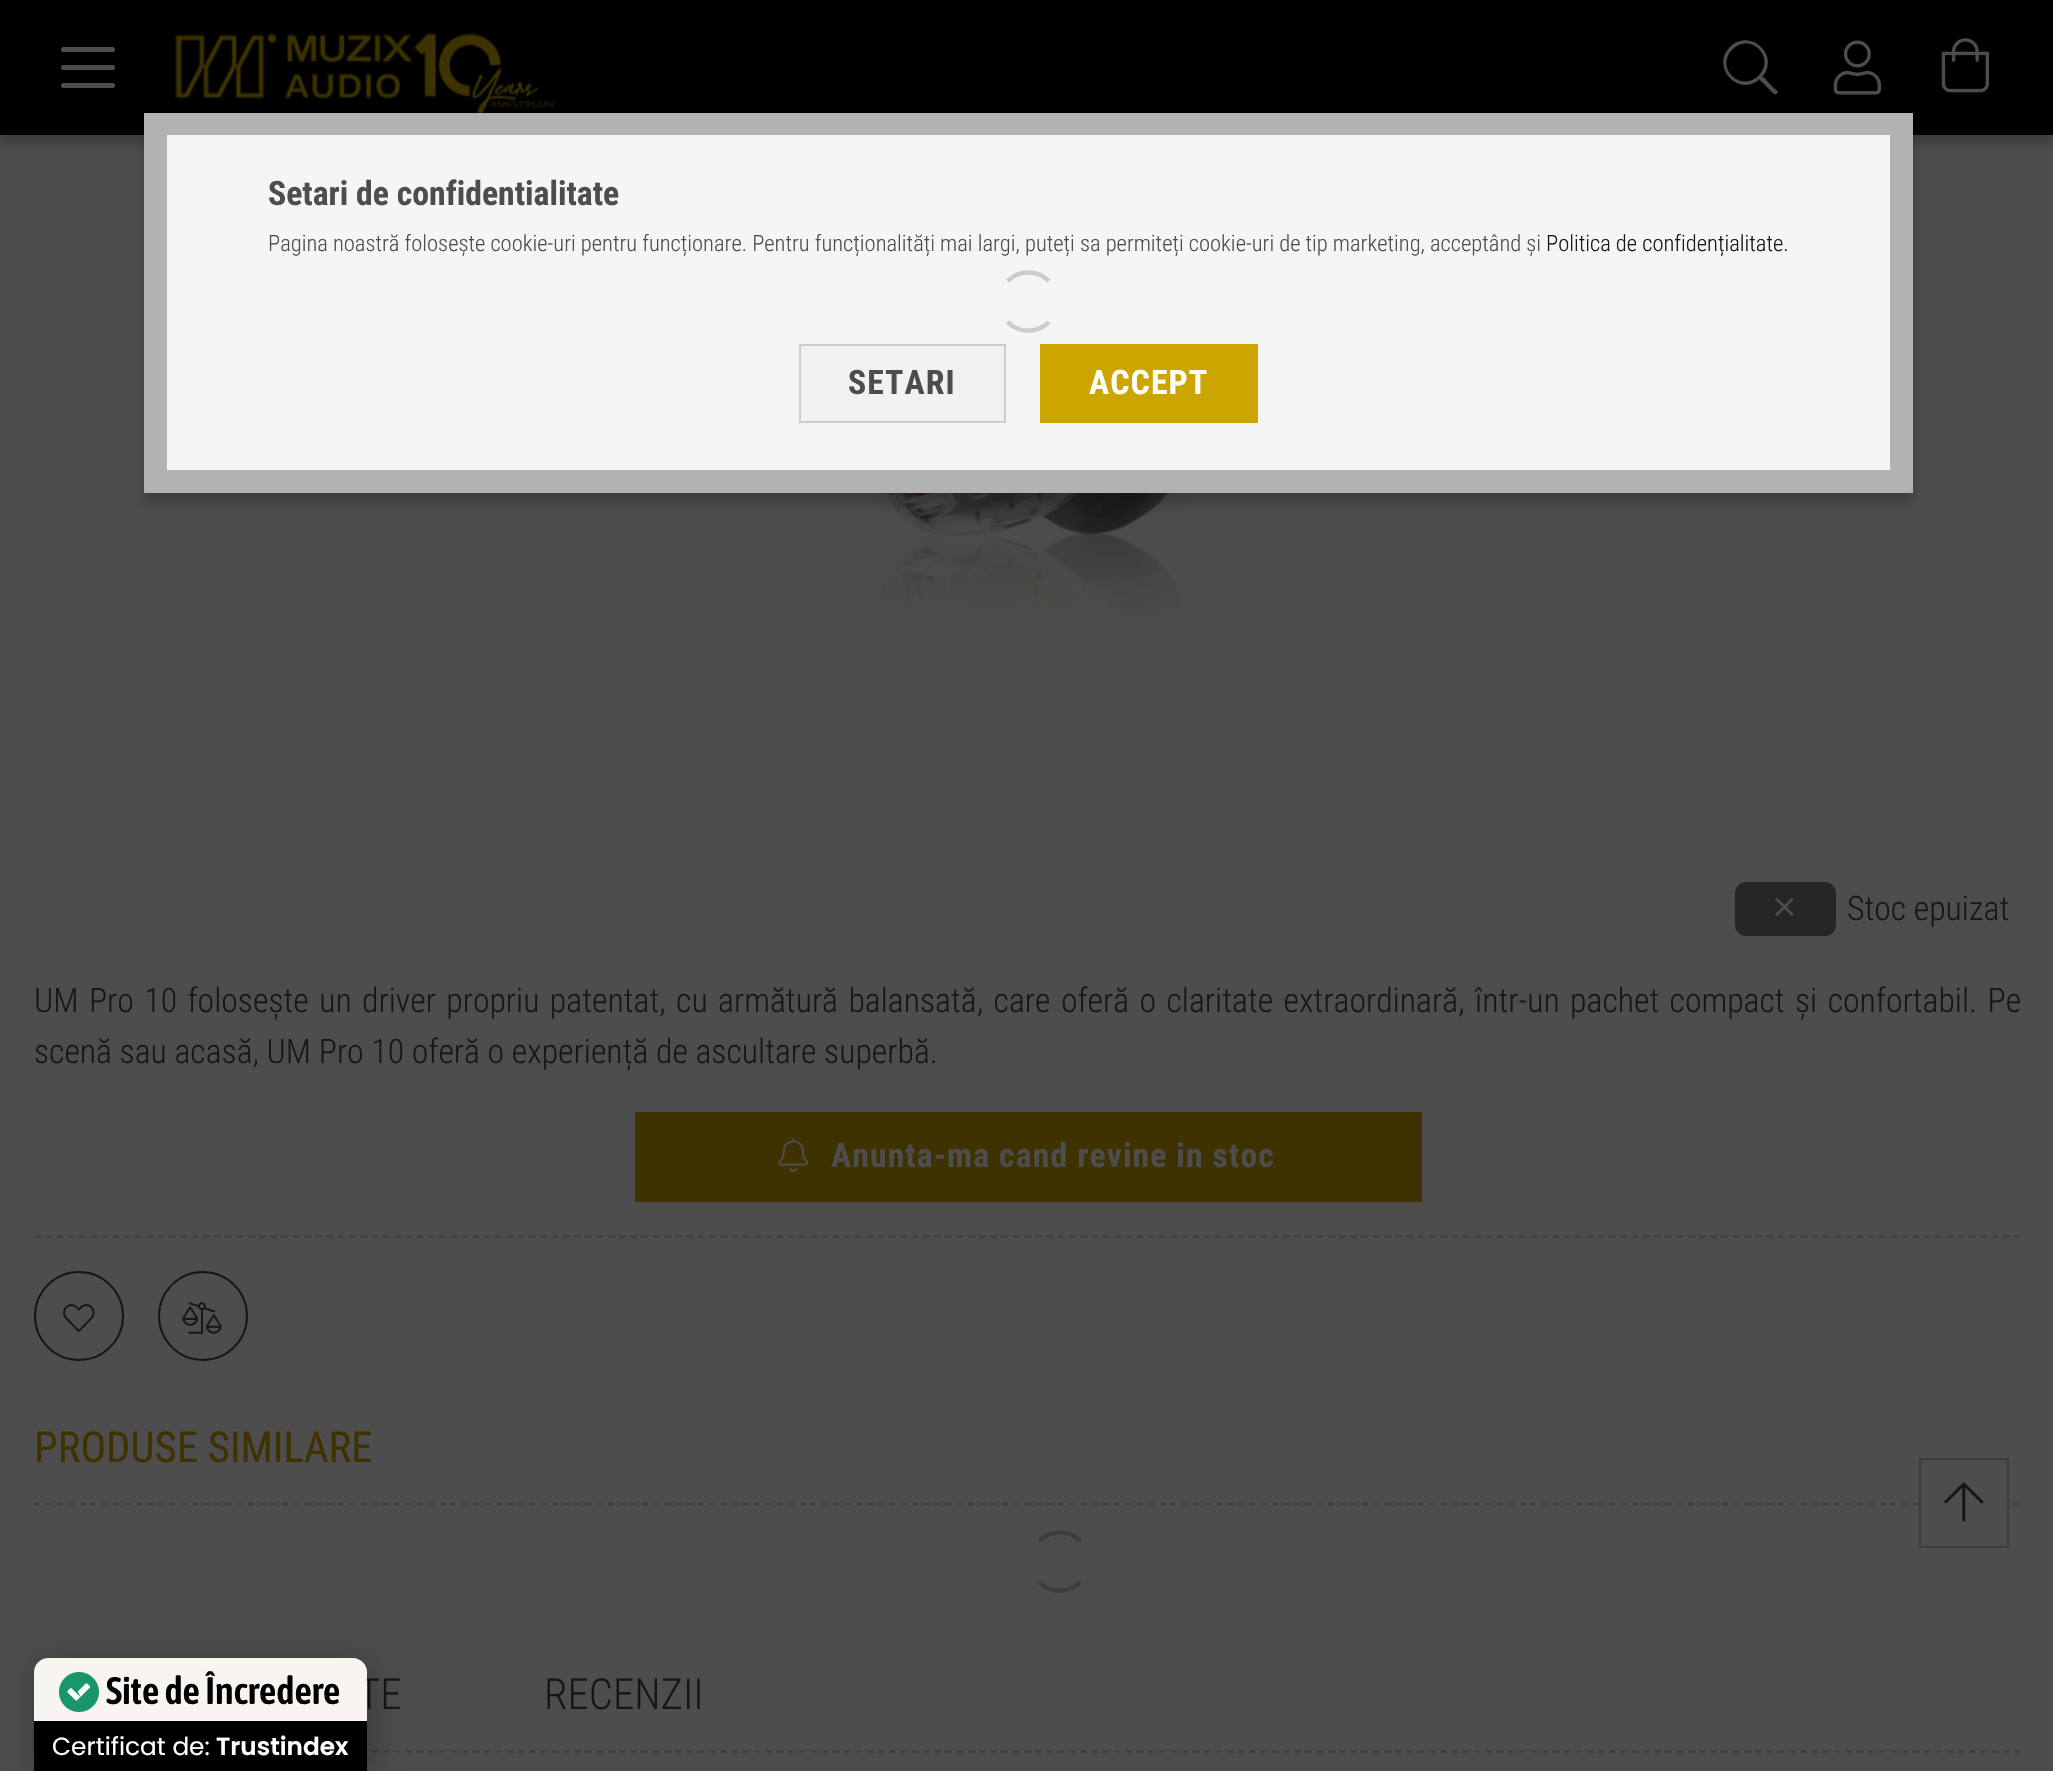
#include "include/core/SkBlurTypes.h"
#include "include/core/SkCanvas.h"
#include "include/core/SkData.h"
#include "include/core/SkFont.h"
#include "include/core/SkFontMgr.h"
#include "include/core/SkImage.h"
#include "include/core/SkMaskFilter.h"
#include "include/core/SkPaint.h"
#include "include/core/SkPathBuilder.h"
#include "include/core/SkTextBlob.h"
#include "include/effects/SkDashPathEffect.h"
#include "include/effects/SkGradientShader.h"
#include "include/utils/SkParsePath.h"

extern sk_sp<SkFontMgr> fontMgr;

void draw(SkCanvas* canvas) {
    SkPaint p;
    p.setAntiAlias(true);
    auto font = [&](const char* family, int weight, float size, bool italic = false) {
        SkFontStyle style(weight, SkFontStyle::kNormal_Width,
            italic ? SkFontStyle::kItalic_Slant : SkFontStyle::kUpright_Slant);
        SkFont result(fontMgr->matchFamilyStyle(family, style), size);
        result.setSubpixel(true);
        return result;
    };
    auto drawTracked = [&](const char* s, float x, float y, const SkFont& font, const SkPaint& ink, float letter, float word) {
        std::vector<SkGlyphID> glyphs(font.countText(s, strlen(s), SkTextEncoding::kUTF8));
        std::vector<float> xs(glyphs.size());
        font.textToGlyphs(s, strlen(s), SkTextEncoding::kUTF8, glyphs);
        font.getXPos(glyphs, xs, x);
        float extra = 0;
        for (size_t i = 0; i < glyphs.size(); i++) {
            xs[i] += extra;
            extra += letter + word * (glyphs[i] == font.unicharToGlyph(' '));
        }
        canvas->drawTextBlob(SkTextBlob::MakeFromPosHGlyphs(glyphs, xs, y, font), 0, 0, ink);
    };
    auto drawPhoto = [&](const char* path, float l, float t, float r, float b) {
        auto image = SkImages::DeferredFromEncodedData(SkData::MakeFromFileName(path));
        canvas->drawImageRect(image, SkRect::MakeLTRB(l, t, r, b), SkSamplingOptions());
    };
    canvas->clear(0xFF4D4D4D);
    p.setColor(0x33000000);
    p.setMaskFilter(SkMaskFilter::MakeBlur(kNormal_SkBlurStyle, 4.5f));
    canvas->drawRect(SkRect::MakeLTRB(0, 9, 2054, 144), p);
    p.setMaskFilter(nullptr);
    p.setColor(0xFF000000);
    canvas->drawRect(SkRect::MakeLTRB(0, 0, 2053, 135), p);
    drawPhoto("media/1.png", 175, 32, 556, 113);
    drawPhoto("media/4.png", 879, 493, 1185, 618);
    p.setColor(0x33000000);
    p.setMaskFilter(SkMaskFilter::MakeBlur(kNormal_SkBlurStyle, 5.5f));
    canvas->drawRect(SkRect::MakeLTRB(144, 124, 1913, 504), p);
    p.setMaskFilter(nullptr);
    p.setStyle(SkPaint::kStroke_Style);
    p.setStrokeWidth(23);
    p.setColor(0xFFB2B2B2);
    canvas->drawRect(SkRect::MakeLTRB(155.5f, 124.5f, 1901.5f, 481.5f), p);
    p.setStyle(SkPaint::kFill_Style);
    p.setColor(0xFFF5F5F5);
    canvas->drawRect(SkRect::MakeLTRB(167, 135, 1890, 470), p);
    auto font1 = font("Roboto Condensed", 700, 33.75f);
    p.setColor(0xFF4D4D4D);
    canvas->drawString("Setari de confidentialitate", 268, 205, font1, p);
    auto font2 = font("Roboto Condensed", 300, 22.5f);
    canvas->drawString("Pagina noastră folosește cookie-uri pentru funcționare. Pentru funcționalități mai largi, puteți sa permiteți cookie-uri de tip marketing, acceptând și", 268, 251, font2, p);
    p.setColor(0xFF161616);
    canvas->drawString("Politica de confidențialitate.", 1546, 251, font2, p);
    p.setColor(0xFFF1F1F1);
    canvas->drawRect(SkRect::MakeLTRB(800, 345, 1005, 422), p);
    p.setStyle(SkPaint::kStroke_Style);
    p.setStrokeWidth(2);
    p.setColor(0xFFCCCCCC);
    canvas->drawRect(SkRect::MakeLTRB(800, 345, 1005, 422), p);
    p.setStyle(SkPaint::kFill_Style);
    p.setColor(0xFF4D4D4D);
    drawTracked("SETARI", 848, 394, font1, p, 1.1f, 0);
    p.setColor(0xFFCCA500);
    canvas->drawRect(SkRect::MakeLTRB(1040, 344, 1258, 423), p);
    p.setColor(0xFFFFFFFF);
    drawTracked("ACCEPT", 1089, 394, font1, p, 1.1f, 0);
    p.setStyle(SkPaint::kStroke_Style);
    p.setStrokeWidth(4.5f);
    p.setColor(0xFFCCCCCC);
    canvas->drawPath(SkPathBuilder().moveTo(1007.5f, 281).cubicTo(1019, 269.5f, 1037.5f, 269.5f, 1049, 281).moveTo(1049, 322).cubicTo(1037.5f, 333.5f, 1019, 333.5f, 1007.5f, 322).detach(), p);
    p.setStyle(SkPaint::kFill_Style);
    p.setColor(0xFF4D4D4D);
    canvas->drawRoundRect(SkRect::MakeLTRB(61, 47, 115, 52), 2.5f, 2.5f, p);
    canvas->drawRoundRect(SkRect::MakeLTRB(61, 65, 115, 70), 2.5f, 2.5f, p);
    canvas->drawRoundRect(SkRect::MakeLTRB(61, 83, 115, 88), 2.5f, 2.5f, p);
    canvas->drawPath(SkPathBuilder().moveTo(1777, 91).lineTo(1778, 92).cubicTo(1776, 98, 1771, 91, 1770, 90).lineTo(1763, 83).cubicTo(1761, 81, 1760, 81, 1760, 79).cubicTo(1739, 98, 1710, 67, 1730, 47).cubicTo(1750, 27, 1781, 56, 1762, 77).cubicTo(1765, 77, 1766, 80, 1768, 82).close().moveTo(1732, 76).cubicTo(1750, 93, 1776, 67, 1759, 49).cubicTo(1741, 32, 1715, 58, 1732, 76).close().detach(), p);
    drawPhoto("media/2.png", 1833, 40, 1881, 95);
    drawPhoto("media/3.png", 1941, 38, 1989, 93);
    p.setColor(0xFF262626);
    canvas->drawRoundRect(SkRect::MakeLTRB(1736, 883, 1835, 935), 10, 10, p);
    p.setStyle(SkPaint::kStroke_Style);
    p.setStrokeWidth(2);
    canvas->drawRoundRect(SkRect::MakeLTRB(1736, 883, 1835, 935), 10, 10, p);
    drawPhoto("media/5.png", 1775, 897, 1794, 917);
    auto font3 = font("Roboto Condensed", 300, 33.75f);
    p.setStyle(SkPaint::kFill_Style);
    p.setColor(0xFF161616);
    canvas->drawString("Stoc epuizat", 1847, 920, font3, p);
    drawTracked("UM Pro 10 folosește un driver propriu patentat, cu armătură balansată, care oferă o claritate extraordinară, într-un pachet compact și confortabil. Pe", 34, 1012, font3, p, 0, 2.8f);
    canvas->drawString("scenă sau acasă, UM Pro 10 oferă o experiență de ascultare superbă.", 34, 1063, font3, p);
    p.setColor(0xFF3D3200);
    canvas->drawRect(SkRect::MakeLTRB(635, 1112, 1422, 1202), p);
    drawPhoto("media/6.png", 778, 1138, 809, 1172);
    p.setColor(0xFF4D4D4D);
    drawTracked("Anunta-ma cand revine in stoc", 831, 1167, font1, p, 1.1f, 0);
    p.setStyle(SkPaint::kStroke_Style);
    p.setStrokeWidth(2.2f);
    p.setColor(0xFF3D3D3D);
    p.setPathEffect(SkDashPathEffect::Make({{6.75f, 4.5f}}, 0));
    canvas->drawPath(SkPathBuilder().moveTo(34, 1236.5f).lineTo(2020.5f, 1236.5f).detach(), p);
    p.setPathEffect(nullptr);
    p.setStrokeWidth(2);
    p.setColor(0xFF161616);
    canvas->drawCircle(79, 1316, 44, p);
    drawPhoto("media/7.png", 63, 1304, 95, 1332);
    canvas->drawCircle(203, 1316, 44, p);
    drawPhoto("media/8.png", 182, 1302, 222, 1334);
    p.setStrokeWidth(2.2f);
    p.setColor(0xFF3D3D3D);
    p.setPathEffect(SkDashPathEffect::Make({{6.75f, 4.5f}}, 0));
    canvas->drawPath(SkPathBuilder().moveTo(34, 1504).lineTo(2020.5f, 1504).detach(), p);
    p.setPathEffect(nullptr);
    auto font4 = font("Roboto Condensed", 400, 42.75f);
    p.setStyle(SkPaint::kFill_Style);
    p.setColor(0xFF3D3200);
    canvas->drawString("PRODUSE SIMILARE", 34, 1462, font4, p);
    p.setStyle(SkPaint::kStroke_Style);
    p.setStrokeWidth(4.5f);
    p.setColor(0xFF3D3D3D);
    canvas->drawPath(SkPathBuilder().moveTo(1039, 1541).cubicTo(1050.5f, 1529.5f, 1069, 1529.5f, 1080.5f, 1541).moveTo(1080.5f, 1582).cubicTo(1069, 1593.5f, 1050.5f, 1593.5f, 1039, 1582).detach(), p);
    p.setStrokeWidth(2.2f);
    p.setPathEffect(SkDashPathEffect::Make({{6.75f, 4.5f}}, 0));
    canvas->drawPath(SkPathBuilder().moveTo(34, 1751.5f).lineTo(2020.5f, 1751.5f).detach(), p);
    p.setPathEffect(nullptr);
    auto font5 = font("Roboto Condensed", 300, 42.75f);
    p.setStyle(SkPaint::kFill_Style);
    p.setColor(0xFF161616);
    canvas->drawString("TE", 358, 1709, font5, p);
    canvas->drawString("RECENZII", 544, 1709, font5, p);
    p.setColor(0xCC4D4D4D);
    canvas->drawRect(SkRect::MakeLTRB(1924, 1503, 2007, 1505), p);
    p.setStyle(SkPaint::kStroke_Style);
    p.setStrokeWidth(2);
    p.setColor(0xFF3D3D3D);
    canvas->drawRect(SkRect::MakeLTRB(1920, 1459, 2008, 1547), p);
    drawPhoto("media/9.png", 1944, 1482, 1984, 1522);
    p.setStyle(SkPaint::kFill_Style);
    p.setColor(0x4D000000);
    p.setMaskFilter(SkMaskFilter::MakeBlur(kNormal_SkBlurStyle, 17));
    canvas->drawRoundRect(SkRect::MakeLTRB(38, 1663, 371, 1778), 14, 14, p);
    p.setMaskFilter(nullptr);
    p.setColor(0xFFF8F5F0);
    canvas->drawPath(SkPathBuilder().moveTo(48, 1658).lineTo(353, 1658).cubicTo(360.5f, 1658, 367, 1664.5f, 367, 1672).lineTo(367, 1721).lineTo(34, 1721).lineTo(34, 1672).cubicTo(34, 1664.5f, 40.5f, 1658, 48, 1658).close().detach(), p);
    drawPhoto("media/10.png", 59, 1672, 99, 1712);
    auto font6 = font("Asap Condensed", 600, 38.25f);
    p.setColor(0xFF000000);
    canvas->drawString("Site de Încredere", 106, 1704, font6, p);
    canvas->drawRect(SkRect::MakeLTRB(34, 1721, 367, 1771), p);
    auto font7 = font("Poppins", 400, 24.75f);
    p.setColor(0xFFFFFFFF);
    canvas->drawString("Certificat de:", 52, 1755, font7, p);
    auto font8 = font("Poppins", 600, 24.75f);
    canvas->drawString("Trustindex", 216, 1755, font8, p);
}
